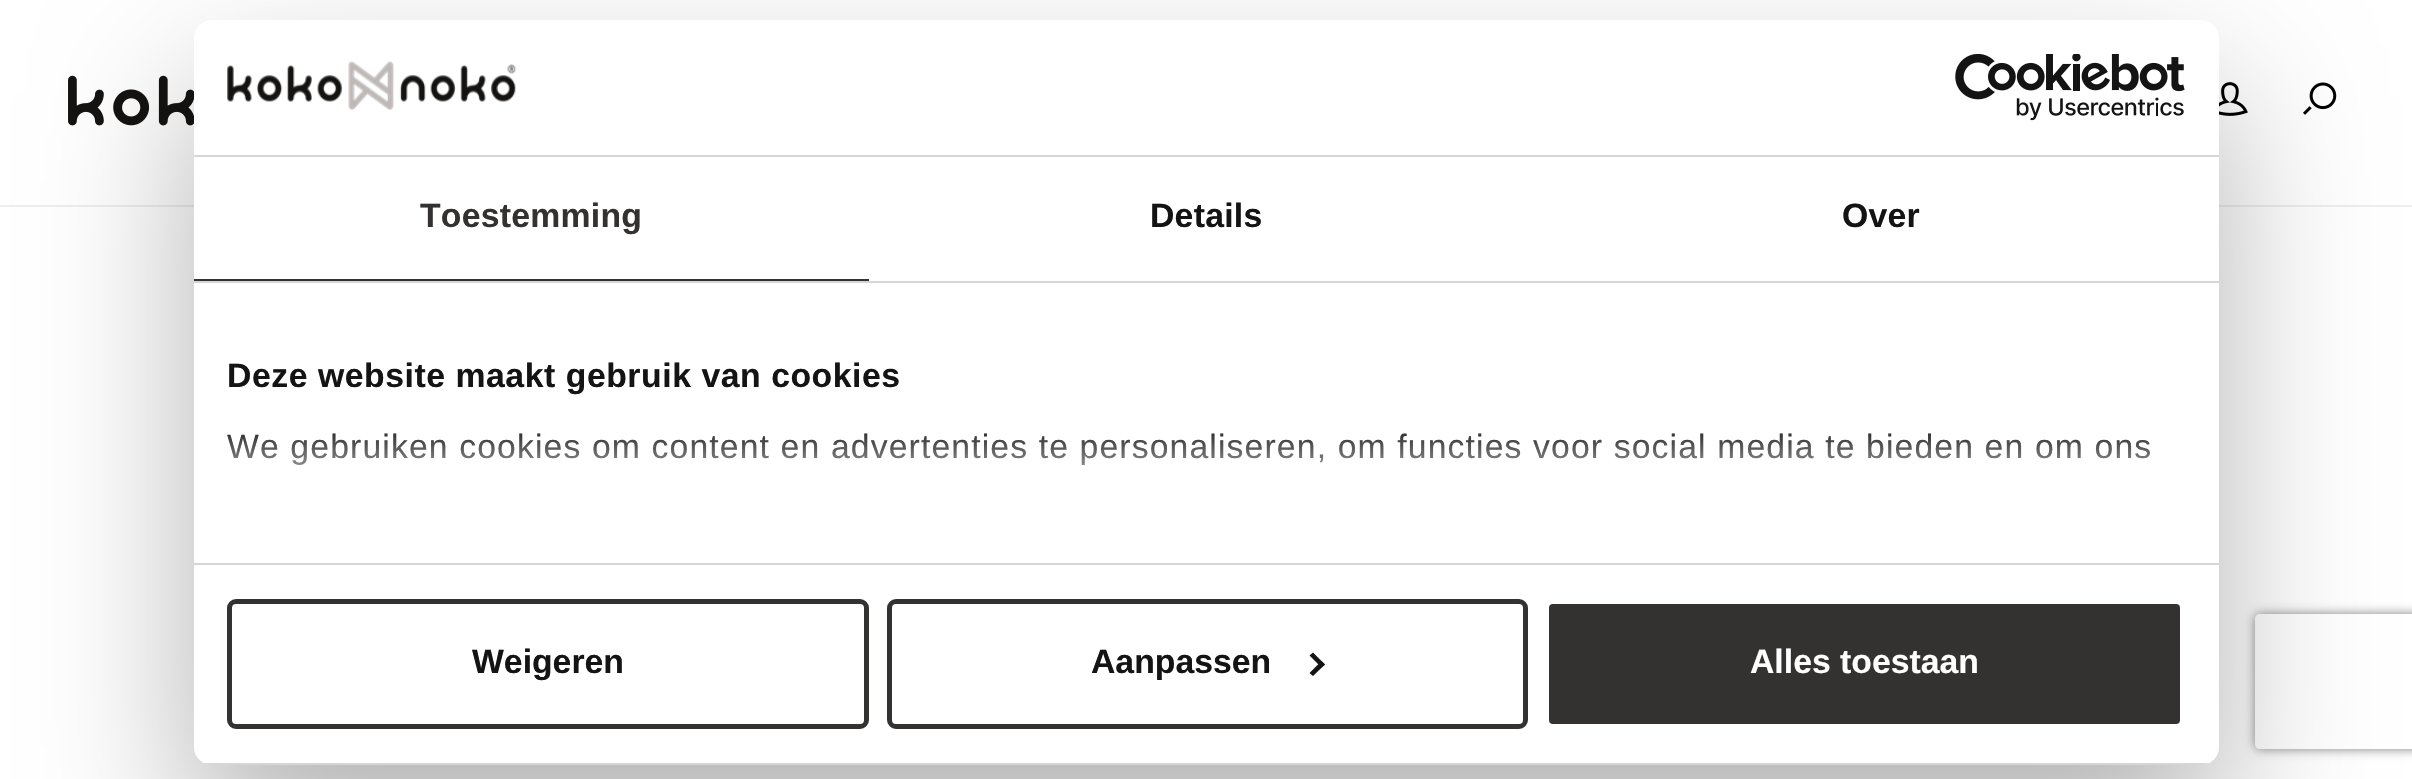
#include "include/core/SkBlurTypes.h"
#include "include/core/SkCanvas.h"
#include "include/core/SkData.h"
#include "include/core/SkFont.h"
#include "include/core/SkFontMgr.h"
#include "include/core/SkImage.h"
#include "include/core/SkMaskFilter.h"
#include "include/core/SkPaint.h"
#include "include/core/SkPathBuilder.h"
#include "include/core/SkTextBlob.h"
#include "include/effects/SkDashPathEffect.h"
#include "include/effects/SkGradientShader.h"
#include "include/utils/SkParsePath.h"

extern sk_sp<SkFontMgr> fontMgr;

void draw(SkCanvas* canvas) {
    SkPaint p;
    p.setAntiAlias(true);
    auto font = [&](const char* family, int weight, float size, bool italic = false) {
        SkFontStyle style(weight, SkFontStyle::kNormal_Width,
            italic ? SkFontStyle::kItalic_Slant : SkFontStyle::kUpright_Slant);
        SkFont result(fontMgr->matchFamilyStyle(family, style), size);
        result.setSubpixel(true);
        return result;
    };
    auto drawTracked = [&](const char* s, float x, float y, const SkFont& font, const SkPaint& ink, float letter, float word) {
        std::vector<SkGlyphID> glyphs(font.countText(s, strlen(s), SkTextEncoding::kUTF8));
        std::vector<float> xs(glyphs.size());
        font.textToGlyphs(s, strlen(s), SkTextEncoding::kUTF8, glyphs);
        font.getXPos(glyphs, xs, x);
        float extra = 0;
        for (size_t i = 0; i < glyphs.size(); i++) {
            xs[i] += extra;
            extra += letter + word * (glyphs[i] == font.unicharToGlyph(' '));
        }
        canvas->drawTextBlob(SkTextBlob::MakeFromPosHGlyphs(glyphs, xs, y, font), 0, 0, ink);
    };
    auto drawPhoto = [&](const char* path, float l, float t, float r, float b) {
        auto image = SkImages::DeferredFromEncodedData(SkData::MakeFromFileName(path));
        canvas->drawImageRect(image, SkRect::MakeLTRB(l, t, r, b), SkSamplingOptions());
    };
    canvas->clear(0xFFFFFFFF);
    p.setColor(0xFFEEEEEE);
    canvas->drawRect(SkRect::MakeLTRB(0, 205, 2412, 207), p);
    drawPhoto("media/1.png", 68, 75, 194, 126);
    drawPhoto("media/2.png", 2219, 82, 2248, 116);
    drawPhoto("media/3.png", 2303, 82, 2337, 115);
    p.setColor(0x4D000000);
    p.setMaskFilter(SkMaskFilter::MakeBlur(kNormal_SkBlurStyle, 76.5f));
    canvas->drawRoundRect(SkRect::MakeLTRB(194, 92, 2219, 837), 18, 18, p);
    p.setMaskFilter(nullptr);
    p.setColor(0xFFFFFFFF);
    canvas->drawRoundRect(SkRect::MakeLTRB(194, 20, 2219, 765), 18, 18, p);
    p.setColor(0xFFD6D6D6);
    canvas->drawRect(SkRect::MakeLTRB(194, 155, 2219, 157), p);
    drawPhoto("media/4.png", 227, 61, 516, 111);
    drawPhoto("media/5.png", 1955, 54, 2185, 121);
    canvas->drawRect(SkRect::MakeLTRB(194, 281, 2219, 283), p);
    p.setColor(0xFF343231);
    canvas->drawRect(SkRect::MakeLTRB(194, 279, 869, 281), p);
    auto font1 = font("Liberation Sans", 700, 33.75f);
    drawTracked("Toestemming", 420, 227, font1, p, 0.25f, 0);
    p.setColor(0xFF141414);
    drawTracked("Details", 1150, 227, font1, p, 0.25f, 0);
    drawTracked("Over", 1842, 227, font1, p, 0.25f, 0);
    p.setColor(0xFFD6D6D6);
    canvas->drawRect(SkRect::MakeLTRB(194, 563, 2219, 565), p);
    p.setColor(0xFF141414);
    drawTracked("Deze website maakt gebruik van cookies", 227, 387, font1, p, 0.55f, 0);
    auto font2 = font("Liberation Sans", 400, 33.75f);
    drawTracked("We gebruiken cookies om content en advertenties te personaliseren, om functies voor social media te bieden en om ons", 227, 458, font2, p, 1.12f, 0);
    {
        const SkColor colors[] = {0xFFFFFFFF, 0xCCFFFFFF, 0x00FFFFFF};
        const float stops[] = {0, 0.5f, 1};
        const SkPoint ends[] = {{1191, 561}, {1191, 422}};
        p.setShader(SkGradientShader::MakeLinear(ends, colors, stops, 3, SkTileMode::kClamp));
        p.setAlpha(255);
    }
    canvas->drawRect(SkRect::MakeLTRB(227, 433, 2151, 465), p);
    canvas->save();
    canvas->clipPath(SkPathBuilder().moveTo(212, 20).lineTo(2201, 20).cubicTo(2211, 20, 2219, 28, 2219, 38).lineTo(2219, 747).cubicTo(2219, 757, 2211, 765, 2201, 765).lineTo(212, 765).cubicTo(202, 765, 194, 757, 194, 747).lineTo(194, 38).cubicTo(194, 28, 202, 20, 212, 20).close().detach(), true);
    p.setShader(nullptr);
    p.setColor(0xFFD6D6D6);
    canvas->drawRect(SkRect::MakeLTRB(204, 763, 2209, 765), p);
    canvas->restore();
    p.setStyle(SkPaint::kStroke_Style);
    p.setStrokeWidth(5);
    p.setColor(0xFF343231);
    canvas->drawRoundRect(SkRect::MakeLTRB(229.5f, 601.5f, 866.5f, 726.5f), 6.5f, 6.5f, p);
    p.setStyle(SkPaint::kFill_Style);
    p.setColor(0xFF141414);
    canvas->drawString("Weigeren", 472, 673, font1, p);
    p.setStyle(SkPaint::kStroke_Style);
    p.setColor(0xFF343231);
    canvas->drawRoundRect(SkRect::MakeLTRB(889.5f, 601.5f, 1525.5f, 726.5f), 6.5f, 6.5f, p);
    p.setStyle(SkPaint::kFill_Style);
    p.setColor(0xFF141414);
    canvas->drawString("Aanpassen", 1091, 673, font1, p);
    canvas->drawPath(SkPathBuilder().moveTo(1313, 652.5f).lineTo(1325, 664.5f).lineTo(1321.5f, 667.5f).lineTo(1309.5f, 655.5f).close().detach(), p);
    canvas->drawPath(SkPathBuilder().moveTo(1321.5f, 661).lineTo(1325, 664.5f).lineTo(1313, 676).lineTo(1309.5f, 673).close().detach(), p);
    p.setColor(0xFF343231);
    canvas->drawRoundRect(SkRect::MakeLTRB(1546.5f, 601.5f, 2182.5f, 726.5f), 6.5f, 6.5f, p);
    p.setStyle(SkPaint::kStroke_Style);
    p.setColor(0xFFFFFFFF);
    canvas->drawRoundRect(SkRect::MakeLTRB(1546.5f, 601.5f, 2182.5f, 726.5f), 6.5f, 6.5f, p);
    p.setStyle(SkPaint::kFill_Style);
    canvas->drawString("Alles toestaan", 1750, 673, font1, p);
    canvas->save();
    canvas->clipPath(SkPathBuilder(SkPathFillType::kEvenOdd).moveTo(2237, 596).lineTo(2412, 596).lineTo(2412, 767).lineTo(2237, 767).close().moveTo(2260, 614).lineTo(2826, 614).cubicTo(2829, 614, 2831, 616, 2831, 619).lineTo(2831, 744).cubicTo(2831, 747, 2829, 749, 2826, 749).lineTo(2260, 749).cubicTo(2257, 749, 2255, 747, 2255, 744).lineTo(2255, 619).cubicTo(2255, 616, 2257, 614, 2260, 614).close().detach(), true);
    p.setColor(0xFF808080);
    p.setMaskFilter(SkMaskFilter::MakeBlur(kNormal_SkBlurStyle, 5.5f));
    canvas->drawRoundRect(SkRect::MakeLTRB(2255, 614, 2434, 749), 5, 5, p);
    p.setMaskFilter(nullptr);
    canvas->restore();
}
